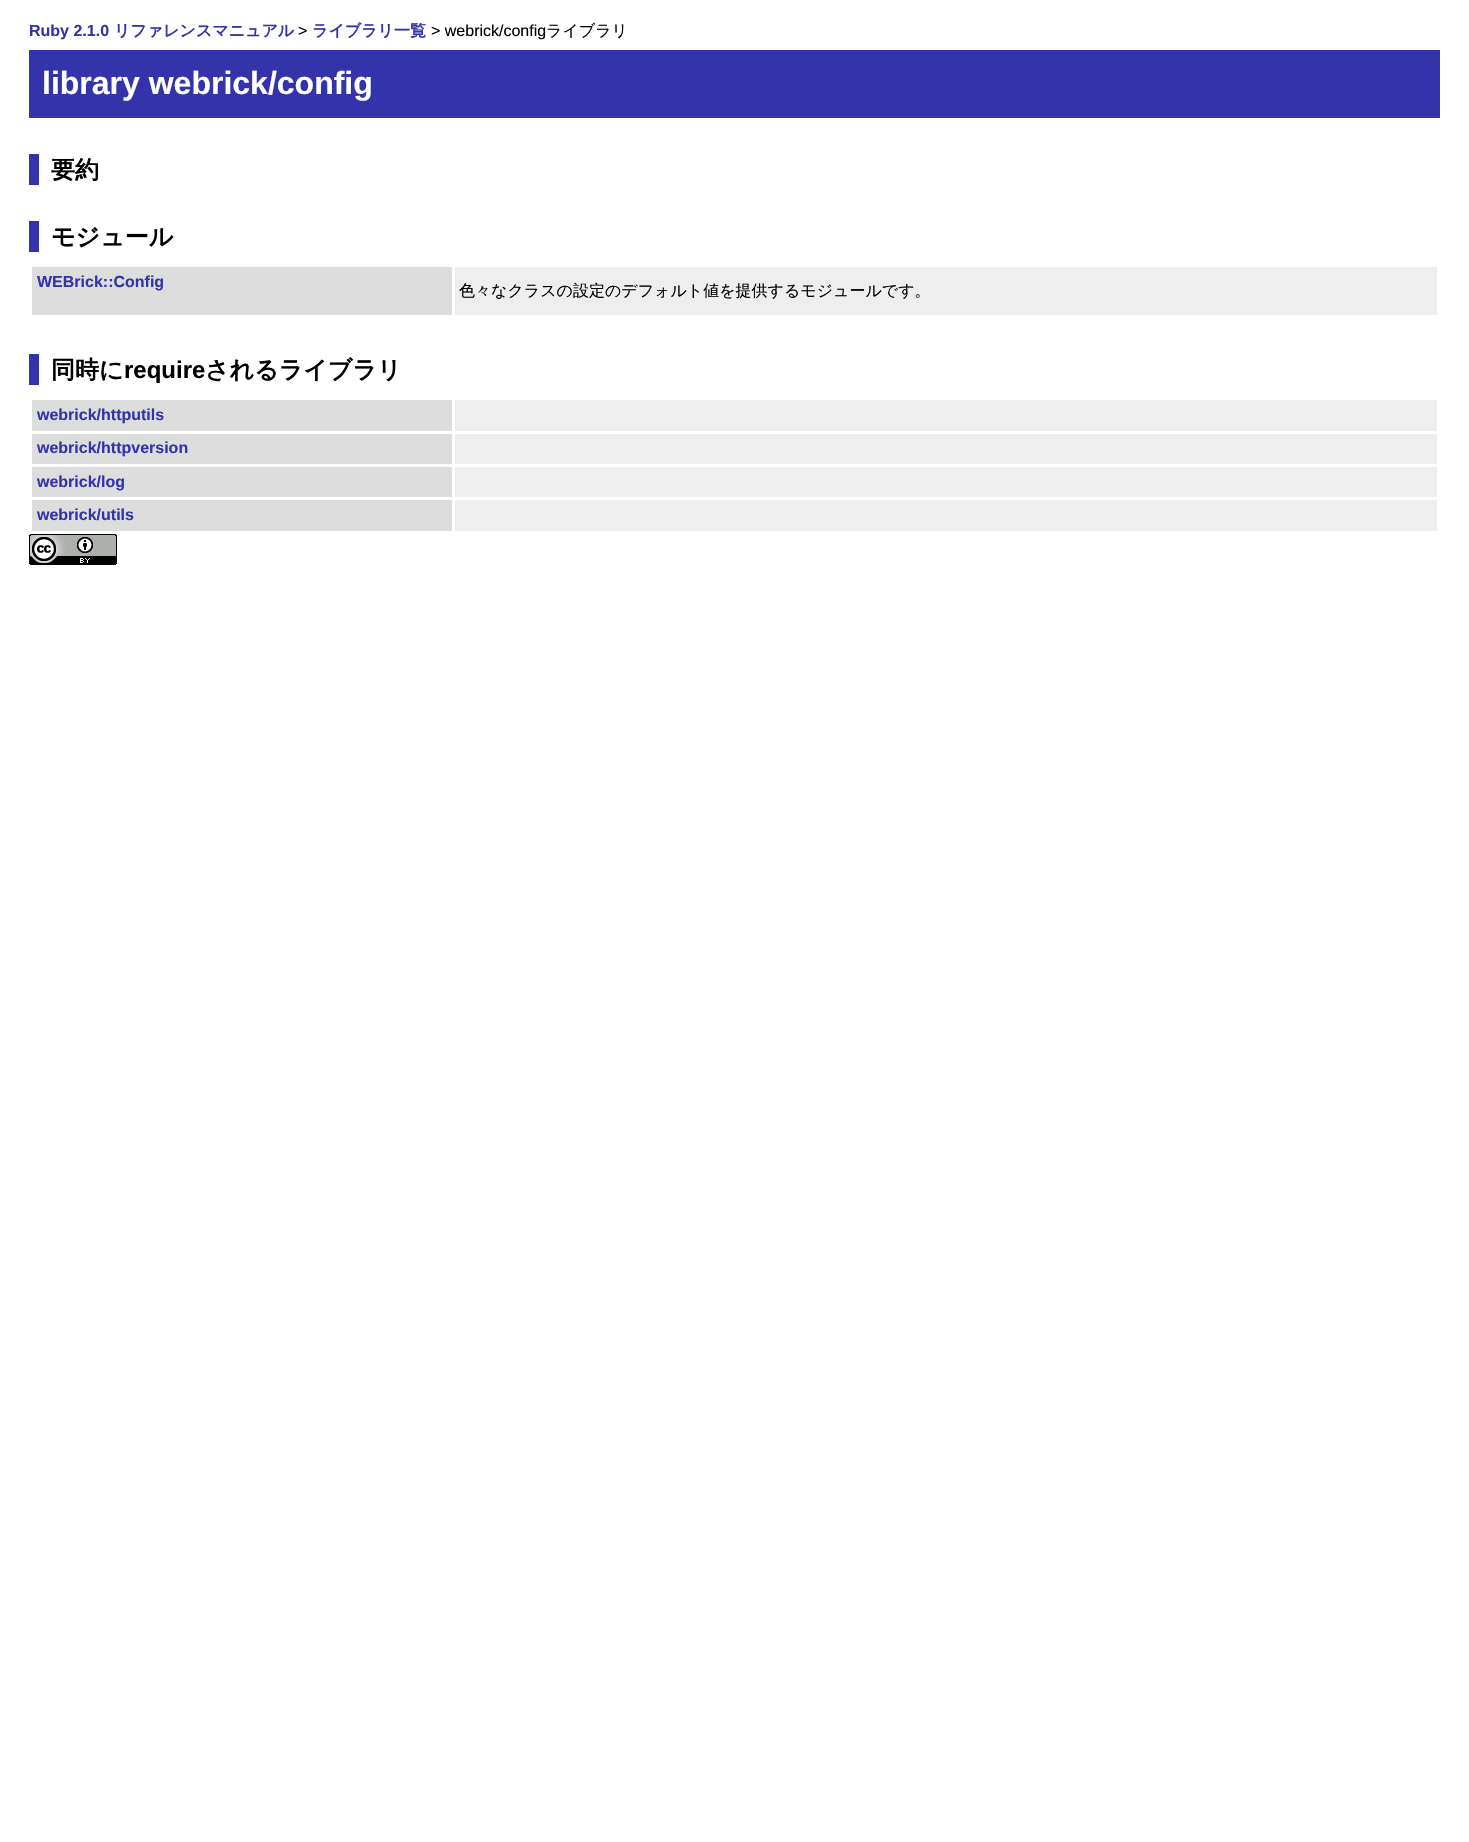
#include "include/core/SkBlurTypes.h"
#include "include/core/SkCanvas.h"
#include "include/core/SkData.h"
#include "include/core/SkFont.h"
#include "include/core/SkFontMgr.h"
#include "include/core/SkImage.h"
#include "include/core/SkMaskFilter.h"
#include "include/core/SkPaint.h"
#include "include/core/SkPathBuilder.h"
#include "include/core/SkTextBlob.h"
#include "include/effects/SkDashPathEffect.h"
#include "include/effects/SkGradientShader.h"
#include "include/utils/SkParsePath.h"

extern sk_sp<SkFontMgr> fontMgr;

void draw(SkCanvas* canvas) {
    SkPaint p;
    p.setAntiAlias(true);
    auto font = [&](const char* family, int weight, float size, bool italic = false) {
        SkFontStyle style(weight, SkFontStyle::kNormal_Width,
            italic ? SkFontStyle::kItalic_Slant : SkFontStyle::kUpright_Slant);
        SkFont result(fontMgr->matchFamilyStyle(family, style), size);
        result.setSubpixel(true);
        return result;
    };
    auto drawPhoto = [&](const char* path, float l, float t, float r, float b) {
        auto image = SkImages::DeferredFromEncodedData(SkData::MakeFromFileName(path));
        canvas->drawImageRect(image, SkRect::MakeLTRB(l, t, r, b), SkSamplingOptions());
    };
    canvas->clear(0xFFFFFFFF);
    auto font1 = font("Liberation Sans", 700, 16);
    p.setColor(0xFF3333AA);
    canvas->drawString("Ruby 2.1.0", 29, 36, font1, p);
    auto font2 = font("WenQuanYi Zen Hei", 700, 16);
    canvas->drawString("リファレンスマニュアル", 114, 36, font2, p);
    auto font3 = font("Liberation Sans", 400, 16);
    p.setColor(0xFF000000);
    canvas->drawString(">", 298, 36, font3, p);
    p.setColor(0xFF3333AA);
    canvas->drawString("ライブラリ一覧", 312, 36, font2, p);
    p.setColor(0xFF000000);
    canvas->drawString("> webrick/config", 431, 36, font3, p);
    auto font4 = font("WenQuanYi Zen Hei", 500, 16);
    canvas->drawString("ライブラリ", 546, 36, font4, p);
    p.setColor(0xFF3333AA);
    canvas->drawRect(SkRect::MakeLTRB(29, 50, 1440, 118), p);
    auto font5 = font("Liberation Sans", 700, 32);
    p.setColor(0xFFFFFFFF);
    canvas->drawString("library webrick/config", 42, 94, font5, p);
    p.setColor(0xFF3333AA);
    canvas->drawRect(SkRect::MakeLTRB(29, 154, 39, 185), p);
    auto font6 = font("WenQuanYi Zen Hei", 700, 24);
    p.setColor(0xFF000000);
    canvas->drawString("要約", 51, 178, font6, p);
    p.setColor(0xFF3333AA);
    canvas->drawRect(SkRect::MakeLTRB(29, 221, 39, 252), p);
    p.setColor(0xFF000000);
    canvas->drawString("モジュール", 51, 245, font6, p);
    p.setColor(0xFFDDDDDD);
    canvas->drawRect(SkRect::MakeLTRB(32, 267, 452, 315), p);
    p.setColor(0xFF3333AA);
    canvas->drawString("WEBrick::Config", 37, 287, font1, p);
    p.setColor(0xFFEEEEEE);
    canvas->drawRect(SkRect::MakeLTRB(455, 267, 1437, 315), p);
    p.setColor(0xFF000000);
    canvas->drawString("色々なクラスの設定のデフォルト値を提供するモジュールです。", 459, 296, font4, p);
    p.setColor(0xFF3333AA);
    canvas->drawRect(SkRect::MakeLTRB(29, 354, 39, 385), p);
    p.setColor(0xFF000000);
    canvas->drawString("同時に", 51, 378, font6, p);
    auto font7 = font("Liberation Sans", 700, 24);
    canvas->drawString("require", 124, 378, font7, p);
    canvas->drawString("されるライブラリ", 205, 378, font6, p);
    p.setColor(0xFFDDDDDD);
    canvas->drawRect(SkRect::MakeLTRB(32, 400, 452, 431), p);
    p.setColor(0xFF3333AA);
    canvas->drawString("webrick/httputils", 37, 420, font1, p);
    p.setColor(0xFFEEEEEE);
    canvas->drawRect(SkRect::MakeLTRB(455, 400, 1437, 431), p);
    p.setColor(0xFFDDDDDD);
    canvas->drawRect(SkRect::MakeLTRB(32, 434, 452, 464), p);
    p.setColor(0xFF3333AA);
    canvas->drawString("webrick/httpversion", 37, 453, font1, p);
    p.setColor(0xFFEEEEEE);
    canvas->drawRect(SkRect::MakeLTRB(455, 434, 1437, 464), p);
    p.setColor(0xFFDDDDDD);
    canvas->drawRect(SkRect::MakeLTRB(32, 467, 452, 497), p);
    p.setColor(0xFF3333AA);
    canvas->drawString("webrick/log", 37, 487, font1, p);
    p.setColor(0xFFEEEEEE);
    canvas->drawRect(SkRect::MakeLTRB(455, 467, 1437, 497), p);
    p.setColor(0xFFDDDDDD);
    canvas->drawRect(SkRect::MakeLTRB(32, 500, 452, 531), p);
    p.setColor(0xFF3333AA);
    canvas->drawString("webrick/utils", 37, 520, font1, p);
    p.setColor(0xFFEEEEEE);
    canvas->drawRect(SkRect::MakeLTRB(455, 500, 1437, 531), p);
    drawPhoto("media/1.png", 29, 534, 117, 565);
}
